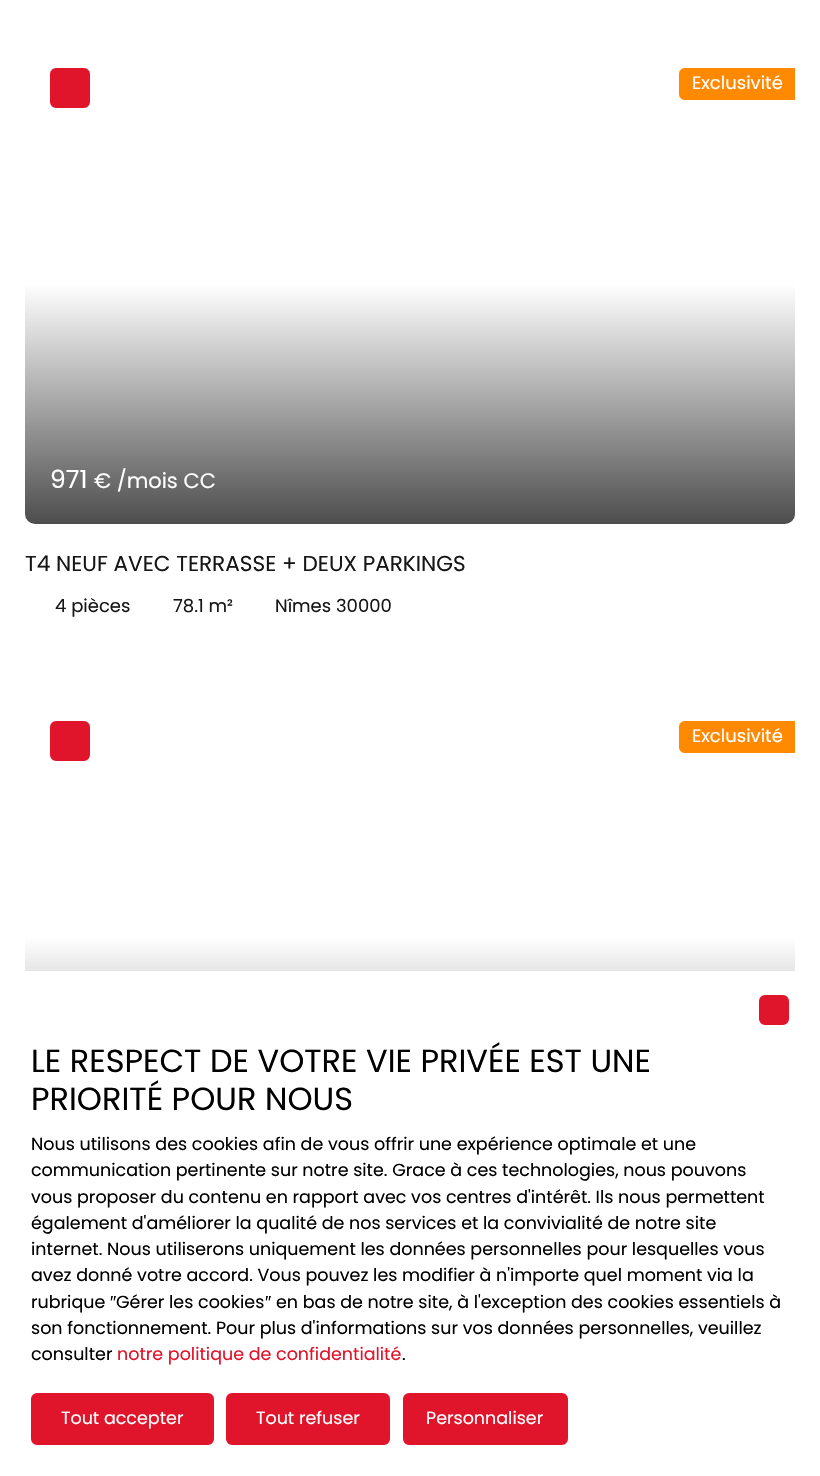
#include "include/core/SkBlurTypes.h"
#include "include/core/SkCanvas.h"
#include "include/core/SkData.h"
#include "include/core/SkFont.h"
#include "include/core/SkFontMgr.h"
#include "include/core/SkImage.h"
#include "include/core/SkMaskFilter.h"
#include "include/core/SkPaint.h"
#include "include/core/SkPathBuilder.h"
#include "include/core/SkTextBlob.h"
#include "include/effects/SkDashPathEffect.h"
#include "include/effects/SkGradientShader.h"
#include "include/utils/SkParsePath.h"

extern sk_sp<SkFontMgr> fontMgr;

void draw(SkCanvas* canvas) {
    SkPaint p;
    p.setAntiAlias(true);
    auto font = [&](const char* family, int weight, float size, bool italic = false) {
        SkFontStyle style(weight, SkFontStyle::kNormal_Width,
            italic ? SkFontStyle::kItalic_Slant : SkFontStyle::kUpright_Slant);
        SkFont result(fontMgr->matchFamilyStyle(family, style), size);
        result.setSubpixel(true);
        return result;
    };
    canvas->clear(0xFFFFFFFF);
    {
        const SkColor colors[] = {0xFF4D4D4D, 0xFFFFFFFF};
        const float stops[] = {0, 0.5f};
        const SkPoint ends[] = {{410, 524}, {410, 43}};
        p.setShader(SkGradientShader::MakeLinear(ends, colors, stops, 2, SkTileMode::kClamp));
        p.setAlpha(255);
    }
    canvas->drawRoundRect(SkRect::MakeLTRB(25, 43, 795, 524), 10, 10, p);
    p.setShader(nullptr);
    p.setColor(0xFFE0142A);
    canvas->drawRoundRect(SkRect::MakeLTRB(51.5f, 69.5f, 88.5f, 106.5f), 4.5f, 4.5f, p);
    p.setStyle(SkPaint::kStroke_Style);
    p.setStrokeWidth(3);
    canvas->drawRoundRect(SkRect::MakeLTRB(51.5f, 69.5f, 88.5f, 106.5f), 4.5f, 4.5f, p);
    p.setStyle(SkPaint::kFill_Style);
    p.setColor(0xFFFF8900);
    canvas->drawPath(SkPathBuilder().moveTo(685, 68).lineTo(795, 68).lineTo(795, 100).lineTo(685, 100).cubicTo(681.5f, 100, 679, 97.5f, 679, 94).lineTo(679, 74).cubicTo(679, 70.5f, 681.5f, 68, 685, 68).close().detach(), p);
    auto font1 = font("Poppins", 400, 18);
    p.setColor(0xFFFFFFFF);
    canvas->drawString("Exclusivité", 692, 89, font1, p);
    auto font2 = font("Poppins", 400, 25);
    canvas->drawString("971", 50, 488, font2, p);
    auto font3 = font("Poppins", 400, 21);
    canvas->drawString("€ /mois CC", 94, 488, font3, p);
    auto font4 = font("Poppins", 400, 21.6f);
    p.setColor(0xFF161616);
    canvas->drawString("T4 NEUF AVEC TERRASSE + DEUX PARKINGS", 25, 571, font4, p);
    {
        const struct { const char* s; float x, y; } items[] = {
            {"4 pièces", 55, 612},
            {"78.1 m²", 173, 612},
            {"Nîmes 30000", 275, 612},
        };
        for (auto [s, x, y] : items) {
            canvas->drawString(s, x, y, font1, p);
        }
    }
    {
        const SkColor colors[] = {0xFF4D4D4D, 0xFFFFFFFF};
        const float stops[] = {0, 0.5f};
        const SkPoint ends[] = {{410, 1178}, {410, 696}};
        p.setShader(SkGradientShader::MakeLinear(ends, colors, stops, 2, SkTileMode::kClamp));
        p.setAlpha(255);
    }
    canvas->drawRoundRect(SkRect::MakeLTRB(25, 696, 795, 1178), 10, 10, p);
    p.setShader(nullptr);
    p.setColor(0xFFE0142A);
    canvas->drawRoundRect(SkRect::MakeLTRB(51.5f, 722.5f, 88.5f, 759.5f), 4.5f, 4.5f, p);
    p.setStyle(SkPaint::kStroke_Style);
    canvas->drawRoundRect(SkRect::MakeLTRB(51.5f, 722.5f, 88.5f, 759.5f), 4.5f, 4.5f, p);
    p.setStyle(SkPaint::kFill_Style);
    p.setColor(0xFFFF8900);
    canvas->drawPath(SkPathBuilder().moveTo(685, 721).lineTo(795, 721).lineTo(795, 753).lineTo(685, 753).cubicTo(681.5f, 753, 679, 750.5f, 679, 747).lineTo(679, 727).cubicTo(679, 723.5f, 681.5f, 721, 685, 721).close().detach(), p);
    p.setColor(0xFFFFFFFF);
    canvas->drawString("Exclusivité", 692, 742, font1, p);
    canvas->drawRect(SkRect::MakeLTRB(25, 971, 795, 1178), p);
    p.setColor(0xFFE0142A);
    canvas->drawRoundRect(SkRect::MakeLTRB(760.5f, 996.5f, 787.5f, 1023.5f), 4.5f, 4.5f, p);
    p.setStyle(SkPaint::kStroke_Style);
    canvas->drawRoundRect(SkRect::MakeLTRB(760.5f, 996.5f, 787.5f, 1023.5f), 4.5f, 4.5f, p);
    auto font5 = font("Poppins", 400, 32);
    p.setStyle(SkPaint::kFill_Style);
    p.setColor(0xFF000000);
    canvas->drawString("LE RESPECT DE VOTRE VIE PRIVÉE EST UNE", 31, 1072, font5, p);
    canvas->drawString("PRIORITÉ POUR NOUS", 31, 1110, font5, p);
    auto font6 = font("Poppins", 400, 17.5f);
    {
        const struct { const char* s; float x, y; } items[] = {
            {"Nous utilisons des cookies afin de vous offrir une expérience optimale et une", 31, 1150},
            {"communication pertinente sur notre site. Grace à ces technologies, nous pouvons", 31, 1176},
            {"vous proposer du contenu en rapport avec vos centres d'intérêt. Ils nous permettent", 31, 1203},
            {"également d'améliorer la qualité de nos services et la convivialité de notre site", 31, 1229},
            {"internet. Nous utiliserons uniquement les données personnelles pour lesquelles vous", 31, 1255},
            {"avez donné votre accord. Vous pouvez les modifier à n'importe quel moment via la", 31, 1281},
            {"rubrique", 31, 1308},
        };
        for (auto [s, x, y] : items) {
            canvas->drawString(s, x, y, font6, p);
        }
    }
    auto font7 = font("Liberation Sans", 400, 17.5f);
    canvas->drawString("″", 110, 1308, font7, p);
    canvas->drawString("Gérer les cookies", 116, 1308, font6, p);
    canvas->drawString("″", 265, 1308, font7, p);
    {
        const struct { const char* s; float x, y; } items[] = {
            {"en bas de notre site, à l'exception des cookies essentiels à", 276, 1308},
            {"son fonctionnement. Pour plus d'informations sur vos données personnelles, veuillez", 31, 1334},
            {"consulter", 31, 1360},
        };
        for (auto [s, x, y] : items) {
            canvas->drawString(s, x, y, font6, p);
        }
    }
    p.setColor(0xFFE0142A);
    canvas->drawString("notre politique de confidentialité", 117, 1360, font6, p);
    p.setColor(0xFF000000);
    canvas->drawString(".", 402, 1360, font6, p);
    p.setColor(0xFFE0142A);
    canvas->drawRoundRect(SkRect::MakeLTRB(32.5f, 1394.5f, 212.5f, 1443.5f), 4.5f, 4.5f, p);
    p.setStyle(SkPaint::kStroke_Style);
    canvas->drawRoundRect(SkRect::MakeLTRB(32.5f, 1394.5f, 212.5f, 1443.5f), 4.5f, 4.5f, p);
    p.setStyle(SkPaint::kFill_Style);
    p.setColor(0xFFFFFFFF);
    canvas->drawString("Tout accepter", 61, 1424, font6, p);
    p.setColor(0xFFE0142A);
    canvas->drawRoundRect(SkRect::MakeLTRB(227.5f, 1394.5f, 388.5f, 1443.5f), 4.5f, 4.5f, p);
    p.setStyle(SkPaint::kStroke_Style);
    canvas->drawRoundRect(SkRect::MakeLTRB(227.5f, 1394.5f, 388.5f, 1443.5f), 4.5f, 4.5f, p);
    p.setStyle(SkPaint::kFill_Style);
    p.setColor(0xFFFFFFFF);
    canvas->drawString("Tout refuser", 256, 1424, font6, p);
    p.setColor(0xFFE0142A);
    canvas->drawRoundRect(SkRect::MakeLTRB(404.5f, 1394.5f, 566.5f, 1443.5f), 4.5f, 4.5f, p);
    p.setStyle(SkPaint::kStroke_Style);
    canvas->drawRoundRect(SkRect::MakeLTRB(404.5f, 1394.5f, 566.5f, 1443.5f), 4.5f, 4.5f, p);
    p.setStyle(SkPaint::kFill_Style);
    p.setColor(0xFFFFFFFF);
    canvas->drawString("Personnaliser", 426, 1424, font6, p);
}
